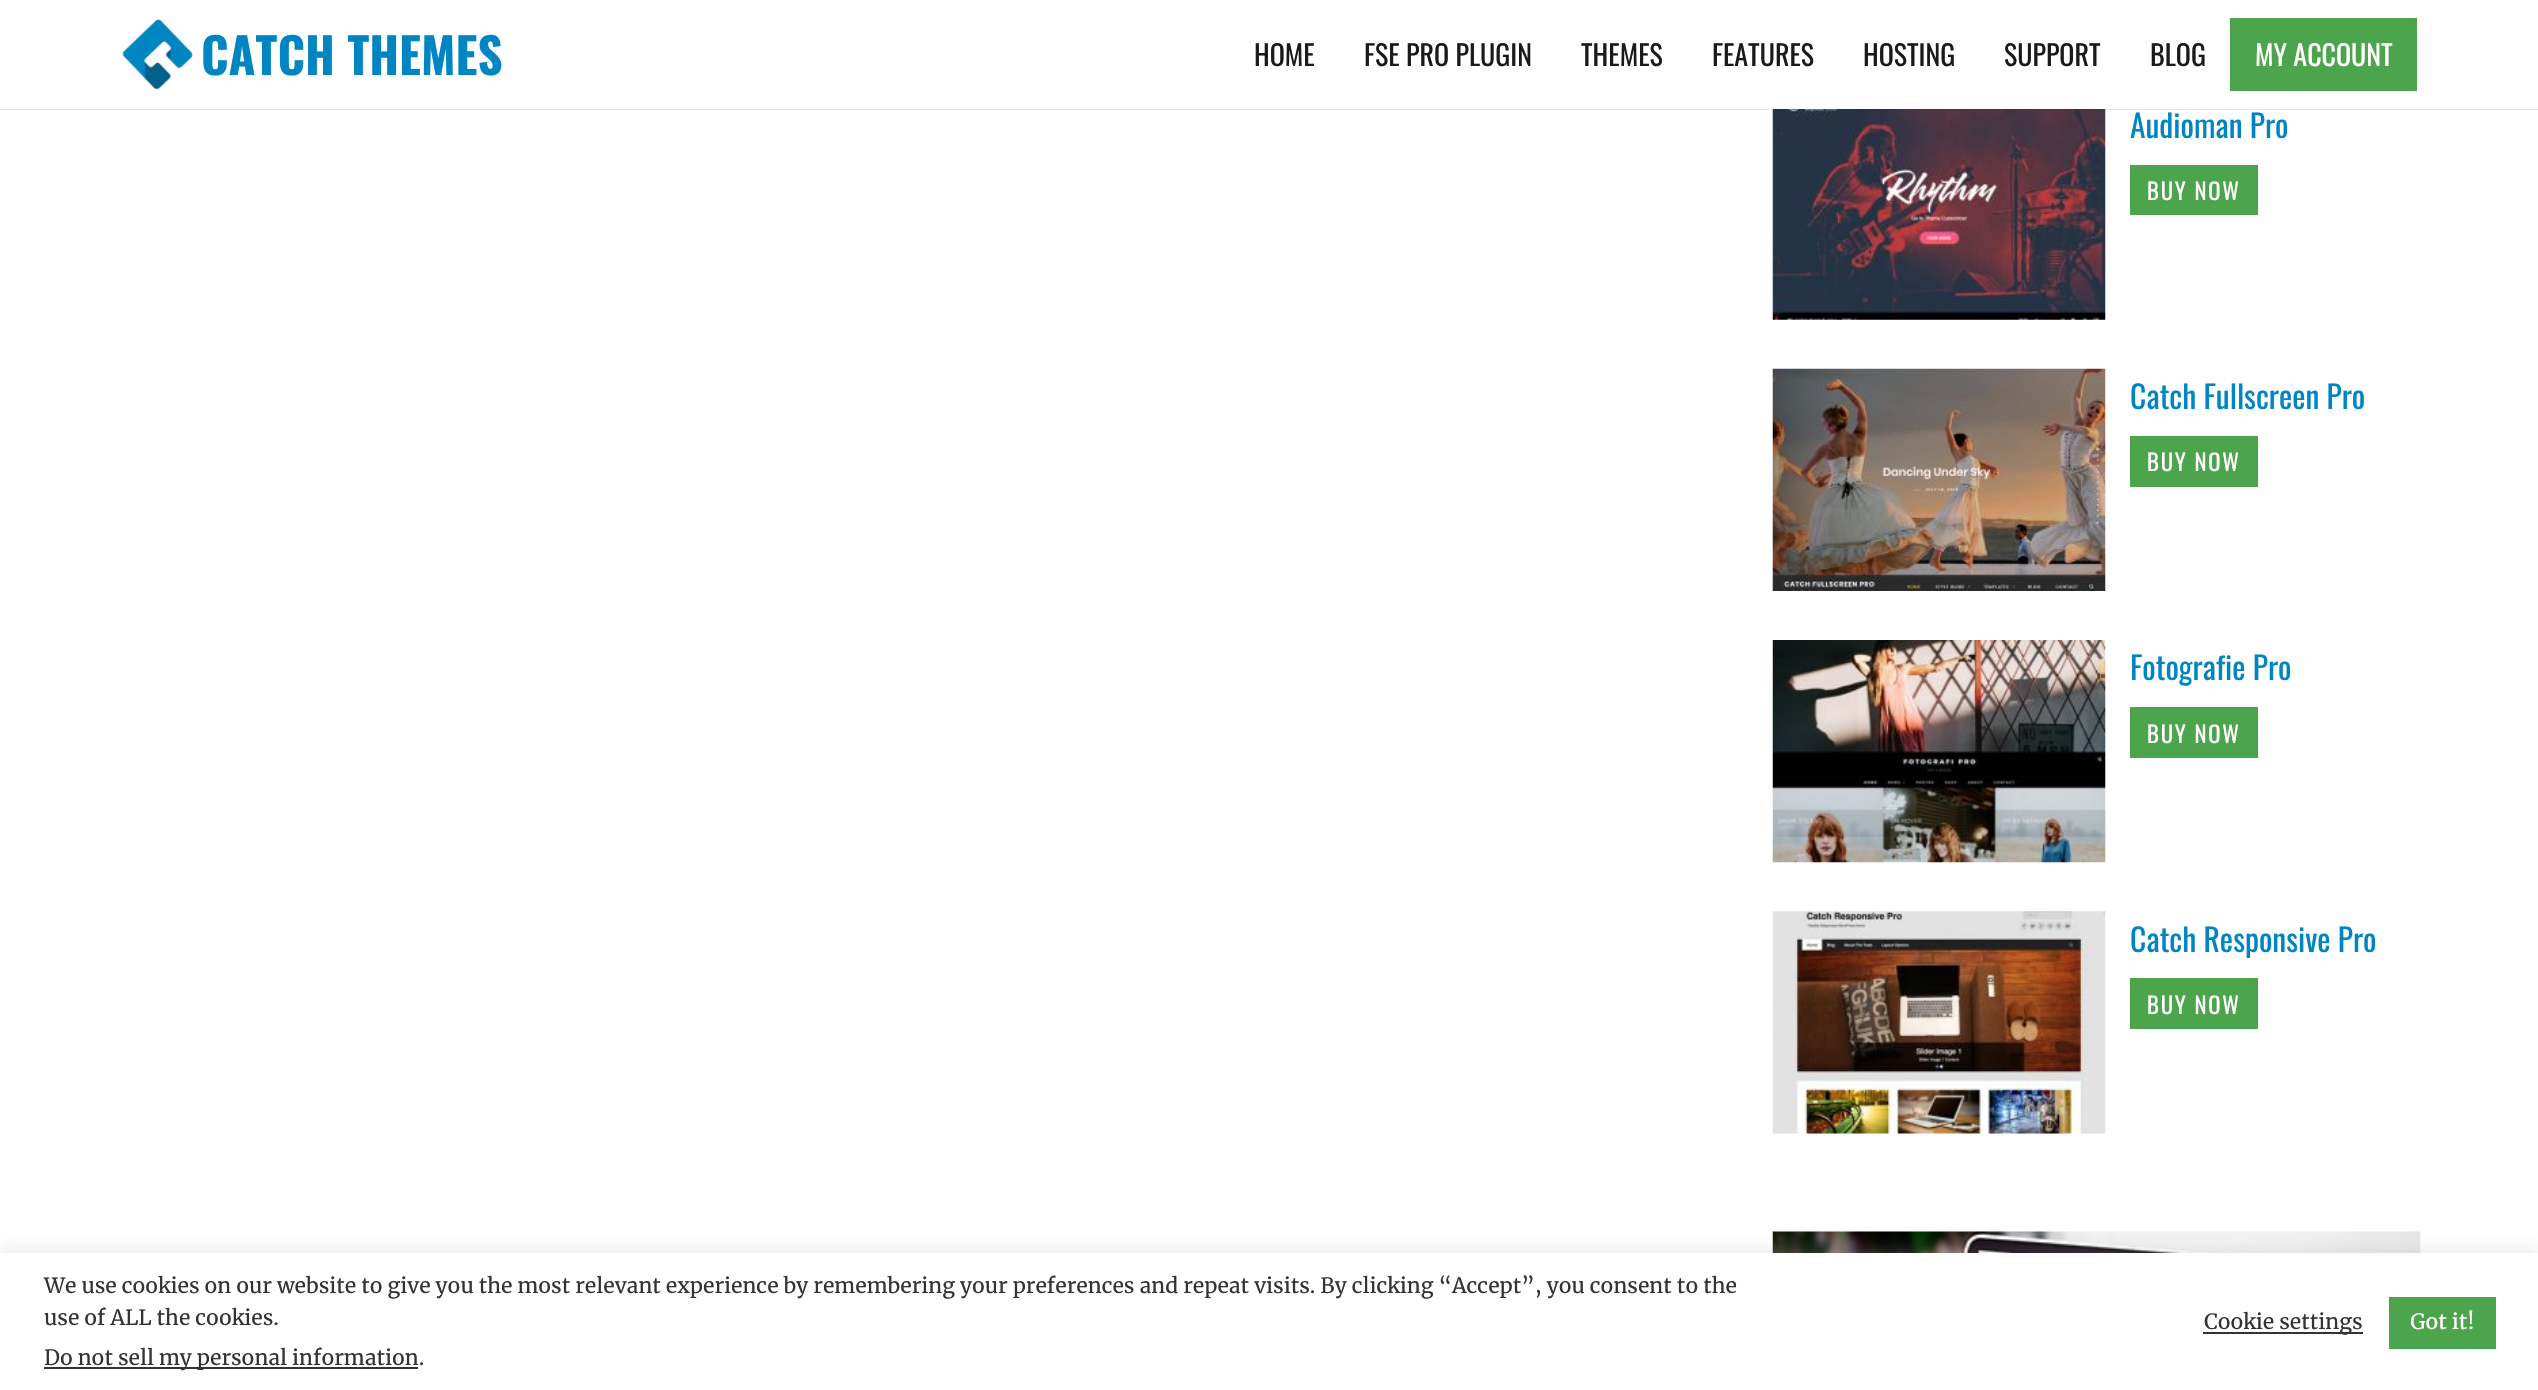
#include "include/core/SkBlurTypes.h"
#include "include/core/SkCanvas.h"
#include "include/core/SkData.h"
#include "include/core/SkFont.h"
#include "include/core/SkFontMgr.h"
#include "include/core/SkImage.h"
#include "include/core/SkMaskFilter.h"
#include "include/core/SkPaint.h"
#include "include/core/SkPathBuilder.h"
#include "include/core/SkTextBlob.h"
#include "include/effects/SkDashPathEffect.h"
#include "include/effects/SkGradientShader.h"
#include "include/utils/SkParsePath.h"

extern sk_sp<SkFontMgr> fontMgr;

void draw(SkCanvas* canvas) {
    SkPaint p;
    p.setAntiAlias(true);
    auto font = [&](const char* family, int weight, float size, bool italic = false) {
        SkFontStyle style(weight, SkFontStyle::kNormal_Width,
            italic ? SkFontStyle::kItalic_Slant : SkFontStyle::kUpright_Slant);
        SkFont result(fontMgr->matchFamilyStyle(family, style), size);
        result.setSubpixel(true);
        return result;
    };
    auto drawTracked = [&](const char* s, float x, float y, const SkFont& font, const SkPaint& ink, float letter, float word) {
        std::vector<SkGlyphID> glyphs(font.countText(s, strlen(s), SkTextEncoding::kUTF8));
        std::vector<float> xs(glyphs.size());
        font.textToGlyphs(s, strlen(s), SkTextEncoding::kUTF8, glyphs);
        font.getXPos(glyphs, xs, x);
        float extra = 0;
        for (size_t i = 0; i < glyphs.size(); i++) {
            xs[i] += extra;
            extra += letter + word * (glyphs[i] == font.unicharToGlyph(' '));
        }
        canvas->drawTextBlob(SkTextBlob::MakeFromPosHGlyphs(glyphs, xs, y, font), 0, 0, ink);
    };
    auto drawPhoto = [&](const char* path, float l, float t, float r, float b) {
        auto image = SkImages::DeferredFromEncodedData(SkData::MakeFromFileName(path));
        canvas->drawImageRect(image, SkRect::MakeLTRB(l, t, r, b), SkSamplingOptions());
    };
    canvas->clear(0xFFFFFFFF);
    drawPhoto("media/2.png", 1772, 109, 2106, 320);
    p.setColor(0x1A222222);
    canvas->drawRect(SkRect::MakeLTRB(0, 109, 2538, 110), p);
    drawPhoto("media/1.png", 122, 19, 193, 90);
    auto font1 = font("Oswald", 700, 49);
    p.setColor(0xFF0085C3);
    canvas->drawString("CATCH THEMES", 201, 75, font1, p);
    auto font2 = font("Oswald", 400, 28);
    p.setColor(0xFF1A1A1A);
    {
        const struct { const char* s; float x, y; } items[] = {
            {"HOME", 1254, 66},
            {"FSE PRO PLUGIN", 1364, 66},
            {"THEMES", 1581, 66},
            {"FEATURES", 1712, 66},
            {"HOSTING", 1863, 66},
            {"SUPPORT", 2004, 66},
            {"BLOG", 2150, 66},
        };
        for (auto [s, x, y] : items) {
            canvas->drawString(s, x, y, font2, p);
        }
    }
    p.setColor(0xFF4CA54C);
    canvas->drawRect(SkRect::MakeLTRB(2230, 18, 2417, 91), p);
    p.setColor(0xFFFFFFFF);
    canvas->drawString("MY ACCOUNT", 2255, 66, font2, p);
    auto font3 = font("Oswald", 400, 31.5f);
    p.setColor(0xFF0085C3);
    canvas->drawString("Audioman Pro", 2130, 138, font3, p);
    p.setColor(0xFF4CA54C);
    canvas->drawRect(SkRect::MakeLTRB(2130, 165, 2258, 215), p);
    auto font4 = font("Oswald", 400, 22.75f);
    p.setColor(0xFFFFFFFF);
    drawTracked("BUY NOW", 2147, 200, font4, p, 1.75f, 0);
    drawPhoto("media/3.png", 1772, 368, 2106, 591);
    p.setColor(0xFF0085C3);
    canvas->drawString("Catch Fullscreen Pro", 2130, 409, font3, p);
    p.setColor(0xFF4CA54C);
    canvas->drawRect(SkRect::MakeLTRB(2130, 436, 2258, 487), p);
    p.setColor(0xFFFFFFFF);
    drawTracked("BUY NOW", 2147, 471, font4, p, 1.75f, 0);
    drawPhoto("media/4.png", 1772, 640, 2106, 863);
    p.setColor(0xFF0085C3);
    canvas->drawString("Fotografie Pro", 2130, 680, font3, p);
    p.setColor(0xFF4CA54C);
    canvas->drawRect(SkRect::MakeLTRB(2130, 707, 2258, 758), p);
    p.setColor(0xFFFFFFFF);
    drawTracked("BUY NOW", 2147, 743, font4, p, 1.75f, 0);
    drawPhoto("media/5.png", 1772, 911, 2106, 1134);
    p.setColor(0xFF0085C3);
    canvas->drawString("Catch Responsive Pro", 2130, 952, font3, p);
    p.setColor(0xFF4CA54C);
    canvas->drawRect(SkRect::MakeLTRB(2130, 978, 2258, 1029), p);
    p.setColor(0xFFFFFFFF);
    drawTracked("BUY NOW", 2147, 1014, font4, p, 1.75f, 0);
    drawPhoto("media/6.png", 1772, 1231, 2421, 1253);
    p.setColor(0x4DACABAB);
    p.setMaskFilter(SkMaskFilter::MakeBlur(kNormal_SkBlurStyle, 9));
    canvas->drawRect(SkRect::MakeLTRB(0, 1251, 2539, 1390), p);
    p.setMaskFilter(nullptr);
    p.setColor(0xFFFFFFFF);
    canvas->drawRect(SkRect::MakeLTRB(0, 1253, 2538, 1390), p);
    auto font5 = font("Merriweather", 400, 21);
    p.setColor(0xFF333333);
    canvas->drawString("We use cookies on our website to give you the most relevant experience by remembering your preferences and repeat visits. By clicking “Accept”, you consent to the", 44, 1293, font5, p);
    canvas->drawString("use of ALL the cookies.", 44, 1325, font5, p);
    canvas->drawRect(SkRect::MakeLTRB(44, 1367, 418, 1369), p);
    canvas->drawString("Do not sell my personal information.", 44, 1365, font5, p);
    canvas->drawRect(SkRect::MakeLTRB(2203, 1332, 2363, 1334), p);
    canvas->drawString("Cookie settings", 2204, 1329, font5, p);
    p.setColor(0xFF4CA54C);
    canvas->drawRect(SkRect::MakeLTRB(2389, 1297, 2496, 1349), p);
    p.setColor(0xFFFFFFFF);
    canvas->drawString("Got it!", 2410, 1329, font5, p);
}
